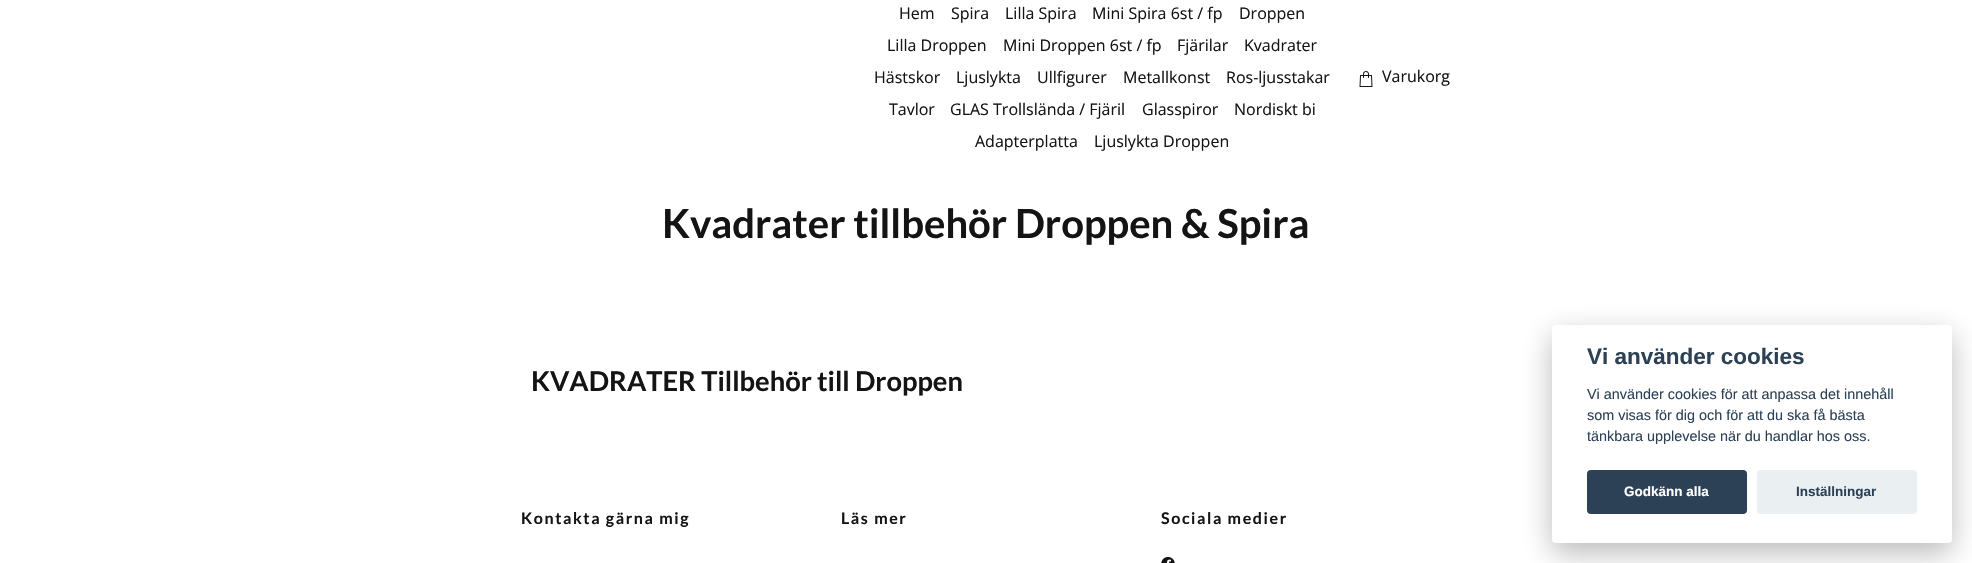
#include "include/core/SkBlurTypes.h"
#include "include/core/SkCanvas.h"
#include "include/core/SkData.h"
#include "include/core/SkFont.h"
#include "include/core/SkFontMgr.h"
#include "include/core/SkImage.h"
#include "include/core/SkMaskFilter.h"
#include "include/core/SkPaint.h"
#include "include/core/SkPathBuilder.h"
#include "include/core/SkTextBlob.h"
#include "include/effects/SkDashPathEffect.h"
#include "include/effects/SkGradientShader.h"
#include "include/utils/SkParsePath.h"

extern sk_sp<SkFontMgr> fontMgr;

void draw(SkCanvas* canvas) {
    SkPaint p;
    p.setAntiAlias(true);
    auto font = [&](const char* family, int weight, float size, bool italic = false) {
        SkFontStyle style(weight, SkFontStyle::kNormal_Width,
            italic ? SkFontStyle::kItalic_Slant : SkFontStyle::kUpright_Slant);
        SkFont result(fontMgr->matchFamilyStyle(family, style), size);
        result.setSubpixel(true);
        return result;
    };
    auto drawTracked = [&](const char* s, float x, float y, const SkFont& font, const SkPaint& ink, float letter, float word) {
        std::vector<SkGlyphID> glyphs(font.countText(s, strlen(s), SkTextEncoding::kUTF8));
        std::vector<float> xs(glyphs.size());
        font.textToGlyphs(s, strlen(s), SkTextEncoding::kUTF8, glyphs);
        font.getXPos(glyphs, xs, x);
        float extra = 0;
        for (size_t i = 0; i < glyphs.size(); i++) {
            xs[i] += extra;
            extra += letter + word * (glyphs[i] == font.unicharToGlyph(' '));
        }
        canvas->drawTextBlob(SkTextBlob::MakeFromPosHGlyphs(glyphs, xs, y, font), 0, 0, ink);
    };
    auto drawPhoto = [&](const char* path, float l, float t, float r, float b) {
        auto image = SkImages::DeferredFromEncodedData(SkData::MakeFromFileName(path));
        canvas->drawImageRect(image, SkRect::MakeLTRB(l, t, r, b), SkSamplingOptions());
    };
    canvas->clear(0xFFFFFFFF);
    auto font1 = font("Open Sans", 400, 16);
    p.setColor(0xFF141414);
    {
        const struct { const char* s; float x, y; } items[] = {
            {"Hem", 899, 19},
            {"Spira", 951, 19},
            {"Lilla Spira", 1005, 19},
            {"Mini Spira 6st / fp", 1092, 19},
            {"Droppen", 1239, 19},
            {"Lilla Droppen", 887, 51},
            {"Mini Droppen 6st / fp", 1003, 51},
            {"Fjärilar", 1177, 51},
            {"Kvadrater", 1244, 51},
            {"Hästskor", 874, 83},
            {"Ljuslykta", 956, 83},
            {"Ullfigurer", 1037, 83},
            {"Metallkonst", 1123, 83},
            {"Ros-ljusstakar", 1226, 83},
            {"Tavlor", 889, 115},
            {"GLAS Trollslända / Fjäril", 950, 115},
            {"Glasspiror", 1142, 115},
            {"Nordiskt bi", 1234, 115},
            {"Adapterplatta", 975, 147},
            {"Ljuslykta Droppen", 1094, 147},
        };
        for (auto [s, x, y] : items) {
            canvas->drawString(s, x, y, font1, p);
        }
    }
    drawPhoto("media/1.png", 1359, 71, 1373, 87);
    canvas->drawString("Varukorg", 1382, 82, font1, p);
    auto font2 = font("Lato", 700, 40);
    canvas->drawString("Kvadrater tillbehör Droppen & Spira", 662, 238, font2, p);
    auto font3 = font("Lato", 700, 27.25f);
    canvas->drawString("KVADRATER Tillbehör till Droppen", 531, 391, font3, p);
    p.setColor(0x47020203);
    p.setMaskFilter(SkMaskFilter::MakeBlur(kNormal_SkBlurStyle, 15));
    canvas->drawRoundRect(SkRect::MakeLTRB(1552, 335, 1952, 553), 4, 4, p);
    p.setMaskFilter(nullptr);
    p.setColor(0xFFFFFFFF);
    canvas->drawRoundRect(SkRect::MakeLTRB(1552, 325, 1952, 543), 4, 4, p);
    auto font4 = font("Liberation Sans", 700, 22.5f);
    p.setColor(0xFF2D4156);
    canvas->drawString("Vi använder cookies", 1587, 364, font4, p);
    auto font5 = font("Liberation Sans", 400, 14.4f);
    {
        const struct { const char* s; float x, y; } items[] = {
            {"Vi använder cookies för att anpassa det innehåll", 1587, 399},
            {"som visas för dig och för att du ska få bästa", 1587, 420},
            {"tänkbara upplevelse när du handlar hos oss.", 1587, 441},
        };
        for (auto [s, x, y] : items) {
            canvas->drawString(s, x, y, font5, p);
        }
    }
    canvas->drawRoundRect(SkRect::MakeLTRB(1587, 470, 1747, 514), 4, 4, p);
    auto font6 = font("Liberation Sans", 700, 13.5f);
    p.setColor(0xFFFFFFFF);
    canvas->drawString("Godkänn alla", 1624, 496, font6, p);
    p.setColor(0xFFEAEFF2);
    canvas->drawRoundRect(SkRect::MakeLTRB(1757, 470, 1917, 514), 4, 4, p);
    p.setColor(0xFF2D4156);
    canvas->drawString("Inställningar", 1796, 496, font6, p);
    auto font7 = font("Lato", 700, 16);
    p.setColor(0xFF141414);
    {
        const struct { const char* s; float x, y; } items[] = {
            {"Kontakta gärna mig", 521, 524},
            {"Läs mer", 841, 524},
            {"Sociala medier", 1161, 524},
        };
        for (auto [s, x, y] : items) {
            drawTracked(s, x, y, font7, p, 1.6f, 0);
        }
    }
    drawPhoto("media/2.png", 1161, 557, 1175, 563);
}
